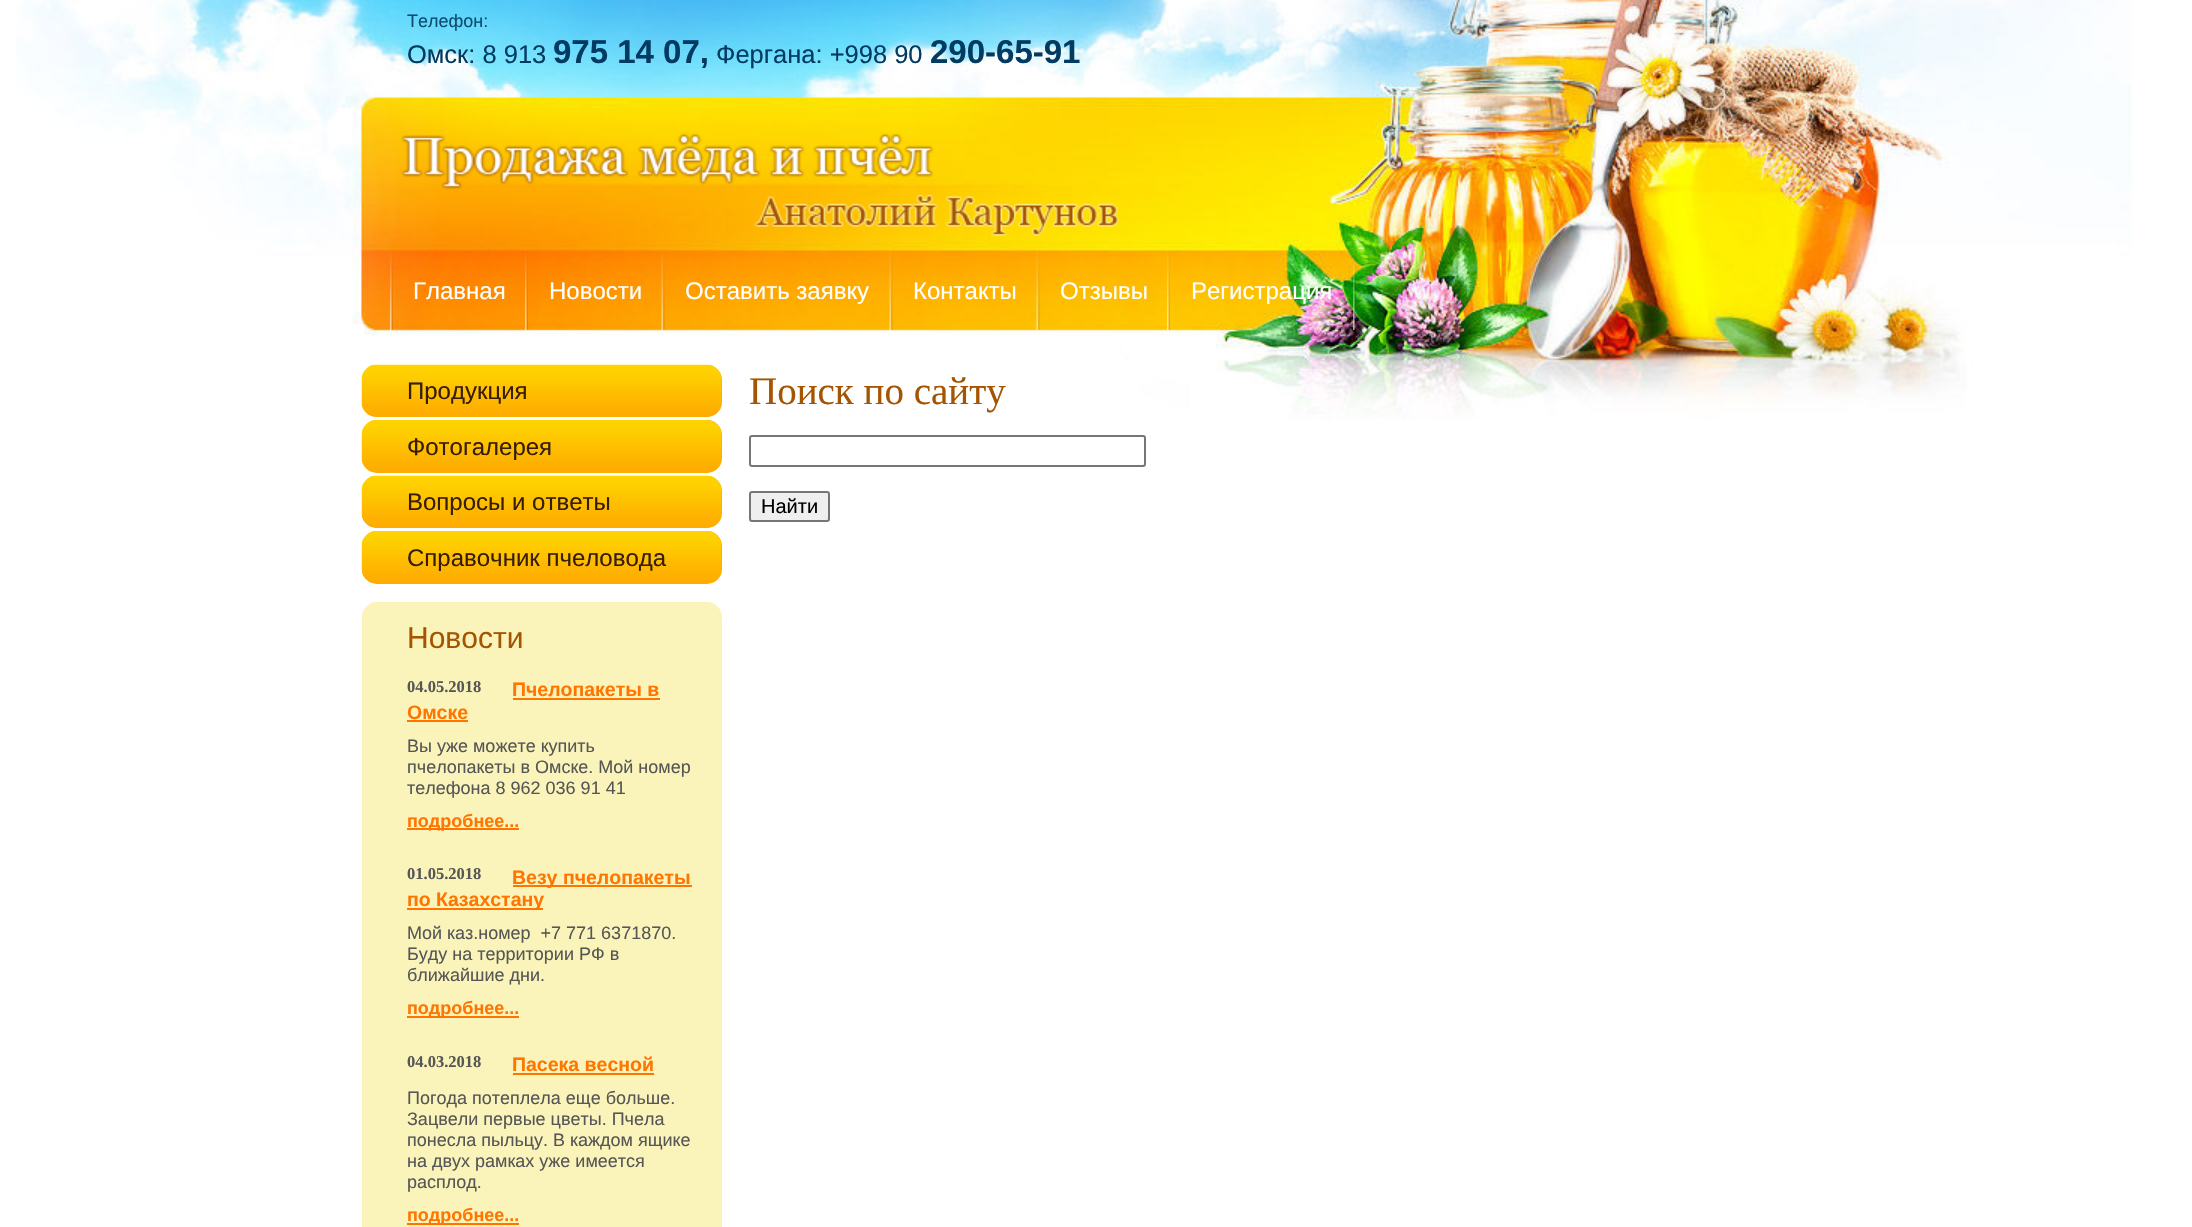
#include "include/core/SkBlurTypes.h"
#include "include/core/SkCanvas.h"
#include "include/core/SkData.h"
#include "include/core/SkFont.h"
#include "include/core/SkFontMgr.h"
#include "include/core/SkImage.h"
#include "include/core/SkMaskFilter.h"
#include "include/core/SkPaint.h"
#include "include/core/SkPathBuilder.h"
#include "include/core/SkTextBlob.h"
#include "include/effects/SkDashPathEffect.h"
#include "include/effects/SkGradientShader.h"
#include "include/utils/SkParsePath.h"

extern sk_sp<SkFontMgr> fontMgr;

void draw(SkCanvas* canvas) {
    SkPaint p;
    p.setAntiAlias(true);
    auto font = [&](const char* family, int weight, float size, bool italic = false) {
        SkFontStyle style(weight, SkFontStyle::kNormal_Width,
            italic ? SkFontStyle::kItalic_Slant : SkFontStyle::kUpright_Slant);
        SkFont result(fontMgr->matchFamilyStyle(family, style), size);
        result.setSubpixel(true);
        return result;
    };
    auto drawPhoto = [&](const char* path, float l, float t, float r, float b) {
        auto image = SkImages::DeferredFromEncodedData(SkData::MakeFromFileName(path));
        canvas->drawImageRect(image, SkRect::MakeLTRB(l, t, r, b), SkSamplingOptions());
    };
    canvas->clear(0xFFFFFFFF);
    drawPhoto("media/1.png", 16, 0, 2132, 420);
    auto font1 = font("Liberation Sans", 400, 18);
    p.setColor(0xFF0E4B6F);
    canvas->drawString("Телефон:", 407, 27, font1, p);
    auto font2 = font("Liberation Sans", 400, 25.5f);
    p.setColor(0xFF023B61);
    canvas->drawString("Омск: 8 913", 407, 63, font2, p);
    auto font3 = font("Liberation Sans", 700, 33);
    canvas->drawString("975 14 07,", 553, 63, font3, p);
    canvas->drawString("Фергана: +998 90", 716, 63, font2, p);
    canvas->drawString("290-65-91", 930, 63, font3, p);
    drawPhoto("media/2.png", 401, 133, 1120, 236);
    drawPhoto("media/3.png", 390, 251, 393, 330);
    drawPhoto("media/4.png", 525, 251, 528, 330);
    auto font4 = font("Liberation Sans", 400, 24);
    p.setColor(0xFFFFFFFF);
    canvas->drawString("Главная", 413, 299, font4, p);
    drawPhoto("media/5.png", 661, 251, 665, 330);
    canvas->drawString("Новости", 549, 299, font4, p);
    drawPhoto("media/6.png", 889, 251, 893, 330);
    canvas->drawString("Оставить заявку", 685, 299, font4, p);
    drawPhoto("media/7.png", 1036, 251, 1040, 330);
    canvas->drawString("Контакты", 913, 299, font4, p);
    drawPhoto("media/8.png", 1167, 251, 1170, 330);
    canvas->drawString("Отзывы", 1060, 299, font4, p);
    drawPhoto("media/9.png", 1353, 251, 1356, 330);
    canvas->drawString("Регистрация", 1191, 299, font4, p);
    p.setColor(0xFFFEAD00);
    canvas->drawRoundRect(SkRect::MakeLTRB(362, 365, 722, 417), 15, 15, p);
    drawPhoto("media/10.png", 361, 364, 722, 417);
    p.setColor(0xFF381D05);
    canvas->drawString("Продукция", 407, 399, font4, p);
    p.setColor(0xFFFEAD00);
    canvas->drawRoundRect(SkRect::MakeLTRB(362, 420, 722, 473), 15, 15, p);
    drawPhoto("media/11.png", 361, 420, 722, 473);
    p.setColor(0xFF381D05);
    canvas->drawString("Фотогалерея", 407, 455, font4, p);
    p.setColor(0xFFFEAD00);
    canvas->drawRoundRect(SkRect::MakeLTRB(362, 476, 722, 528), 15, 15, p);
    drawPhoto("media/10.png", 361, 475, 722, 528);
    p.setColor(0xFF381D05);
    canvas->drawString("Вопросы и ответы", 407, 510, font4, p);
    p.setColor(0xFFFEAD00);
    canvas->drawRoundRect(SkRect::MakeLTRB(362, 531, 722, 584), 15, 15, p);
    drawPhoto("media/11.png", 361, 531, 722, 584);
    p.setColor(0xFF381D05);
    canvas->drawString("Справочник пчеловода", 407, 566, font4, p);
    p.setColor(0xFFFBF4BA);
    canvas->drawRoundRect(SkRect::MakeLTRB(362, 602, 722, 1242), 15, 15, p);
    auto font5 = font("Liberation Sans", 400, 30);
    p.setColor(0xFFA55401);
    canvas->drawString("Новости", 407, 648, font5, p);
    auto font6 = font("Liberation Serif", 700, 16.5f);
    p.setColor(0xFF565656);
    canvas->drawString("04.05.2018", 407, 692, font6, p);
    auto font7 = font("Liberation Sans", 700, 19.5f);
    p.setColor(0xFFFF7500);
    canvas->drawString("Пчелопакеты в", 512, 696, font7, p);
    canvas->drawRect(SkRect::MakeLTRB(513, 698, 660, 700), p);
    canvas->drawString("Омске", 407, 719, font7, p);
    canvas->drawRect(SkRect::MakeLTRB(407, 720, 468, 722), p);
    p.setColor(0xFF565656);
    {
        const struct { const char* s; float x, y; } items[] = {
            {"Вы уже можете купить", 407, 752},
            {"пчелопакеты в Омске. Мой номер", 407, 773},
            {"телефона 8 962 036 91 41", 407, 794},
        };
        for (auto [s, x, y] : items) {
            canvas->drawString(s, x, y, font1, p);
        }
    }
    p.setColor(0xFFFF7500);
    canvas->drawRect(SkRect::MakeLTRB(407, 828, 519, 830), p);
    auto font8 = font("Liberation Sans", 700, 18);
    canvas->drawString("подробнее...", 407, 827, font8, p);
    p.setColor(0xFF565656);
    canvas->drawString("01.05.2018", 407, 879, font6, p);
    p.setColor(0xFFFF7500);
    canvas->drawRect(SkRect::MakeLTRB(513, 885, 692, 887), p);
    canvas->drawString("Везу пчелопакеты", 512, 884, font7, p);
    canvas->drawRect(SkRect::MakeLTRB(407, 908, 543, 910), p);
    canvas->drawString("по Казахстану", 407, 906, font7, p);
    p.setColor(0xFF565656);
    {
        const struct { const char* s; float x, y; } items[] = {
            {"Мой каз.номер  +7 771 6371870.", 407, 939},
            {"Буду на территории РФ в", 407, 960},
            {"ближайшие дни.", 407, 981},
        };
        for (auto [s, x, y] : items) {
            canvas->drawString(s, x, y, font1, p);
        }
    }
    p.setColor(0xFFFF7500);
    canvas->drawRect(SkRect::MakeLTRB(407, 1016, 519, 1018), p);
    canvas->drawString("подробнее...", 407, 1014, font8, p);
    p.setColor(0xFF565656);
    canvas->drawString("04.03.2018", 407, 1067, font6, p);
    p.setColor(0xFFFF7500);
    canvas->drawString("Пасека весной", 512, 1071, font7, p);
    canvas->drawRect(SkRect::MakeLTRB(513, 1073, 654, 1075), p);
    p.setColor(0xFF565656);
    {
        const struct { const char* s; float x, y; } items[] = {
            {"Погода потеплела еще больше.", 407, 1104},
            {"Зацвели первые цветы. Пчела", 407, 1125},
            {"понесла пыльцу. В каждом ящике", 407, 1146},
            {"на двух рамках уже имеется", 407, 1167},
            {"расплод.", 407, 1188},
        };
        for (auto [s, x, y] : items) {
            canvas->drawString(s, x, y, font1, p);
        }
    }
    p.setColor(0xFFFF7500);
    canvas->drawRect(SkRect::MakeLTRB(407, 1223, 519, 1225), p);
    canvas->drawString("подробнее...", 407, 1221, font8, p);
    auto font9 = font("Liberation Serif", 400, 39);
    p.setColor(0xFFA55401);
    canvas->drawString("Поиск по сайту", 749, 404, font9, p);
    p.setStyle(SkPaint::kStroke_Style);
    p.setStrokeWidth(2);
    p.setColor(0xFF767676);
    canvas->drawRoundRect(SkRect::MakeLTRB(750, 436, 1145, 466), 2, 2, p);
    p.setStyle(SkPaint::kFill_Style);
    p.setColor(0xFFEFEFEF);
    canvas->drawRoundRect(SkRect::MakeLTRB(750, 492, 829, 521), 2, 2, p);
    p.setStyle(SkPaint::kStroke_Style);
    p.setColor(0xFF767676);
    canvas->drawRoundRect(SkRect::MakeLTRB(750, 492, 829, 521), 2, 2, p);
    auto font10 = font("Liberation Sans", 400, 20);
    p.setStyle(SkPaint::kFill_Style);
    p.setColor(0xFF000000);
    canvas->drawString("Найти", 761, 513, font10, p);
}
